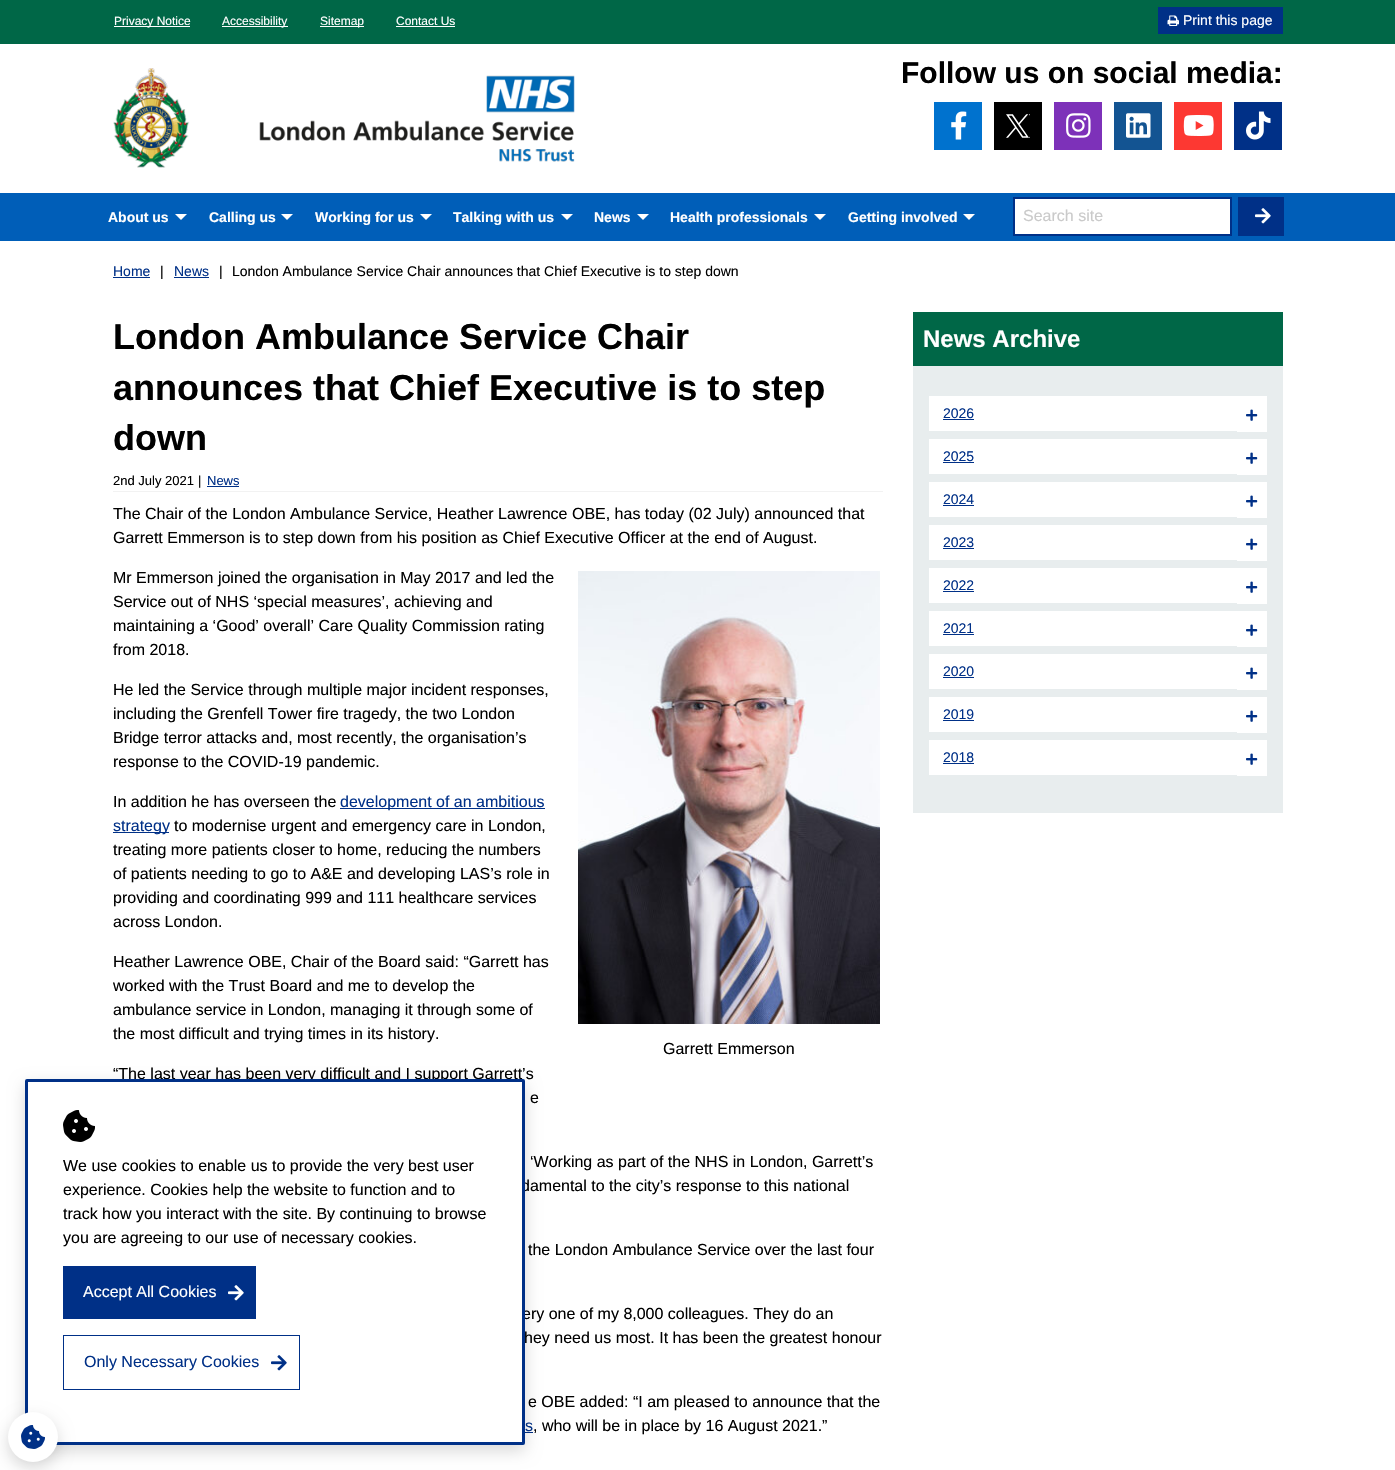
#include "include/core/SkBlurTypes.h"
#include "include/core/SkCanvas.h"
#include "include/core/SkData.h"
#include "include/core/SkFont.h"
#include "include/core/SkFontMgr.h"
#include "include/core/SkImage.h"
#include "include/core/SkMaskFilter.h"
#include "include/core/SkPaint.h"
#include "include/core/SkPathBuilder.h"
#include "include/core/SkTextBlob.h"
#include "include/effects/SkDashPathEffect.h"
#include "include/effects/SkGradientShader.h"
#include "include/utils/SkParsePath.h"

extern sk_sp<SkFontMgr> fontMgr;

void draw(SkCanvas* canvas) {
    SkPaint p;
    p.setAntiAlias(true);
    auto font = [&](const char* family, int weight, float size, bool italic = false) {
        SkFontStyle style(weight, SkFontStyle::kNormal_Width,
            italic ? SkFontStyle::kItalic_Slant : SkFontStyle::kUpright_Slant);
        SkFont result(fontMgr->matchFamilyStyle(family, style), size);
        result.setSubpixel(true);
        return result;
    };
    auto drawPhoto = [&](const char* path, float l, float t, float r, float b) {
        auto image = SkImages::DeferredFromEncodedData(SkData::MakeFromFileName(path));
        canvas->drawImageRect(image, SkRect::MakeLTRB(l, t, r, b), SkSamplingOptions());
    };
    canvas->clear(0xFFFFFFFF);
    p.setColor(0xFF006747);
    canvas->drawRect(SkRect::MakeLTRB(0, 0, 1395, 44), p);
    p.setColor(0xFFFFFFFF);
    canvas->drawRect(SkRect::MakeLTRB(114, 26, 190, 27), p);
    auto font1 = font("Liberation Sans", 400, 12);
    canvas->drawString("Privacy Notice", 114, 25, font1, p);
    canvas->drawRect(SkRect::MakeLTRB(222, 26, 288, 27), p);
    canvas->drawString("Accessibility", 222, 25, font1, p);
    canvas->drawRect(SkRect::MakeLTRB(320, 26, 364, 27), p);
    canvas->drawString("Sitemap", 320, 25, font1, p);
    canvas->drawString("Contact Us", 396, 25, font1, p);
    canvas->drawRect(SkRect::MakeLTRB(396, 26, 455, 27), p);
    p.setColor(0xFF003087);
    canvas->drawRect(SkRect::MakeLTRB(1158, 7, 1283, 34), p);
    drawPhoto("media/1.png", 1167, 15, 1179, 26);
    auto font2 = font("Liberation Sans", 400, 14);
    p.setColor(0xFFFFFFFF);
    canvas->drawString("Print this page", 1183, 25, font2, p);
    drawPhoto("media/2.png", 113, 68, 575, 168);
    auto font3 = font("Liberation Sans", 700, 30);
    p.setColor(0xFF000000);
    canvas->drawString("Follow us on social media:", 901, 83, font3, p);
    p.setColor(0xFF0072CE);
    canvas->drawRect(SkRect::MakeLTRB(934, 102, 982, 150), p);
    drawPhoto("media/3.png", 951, 111, 967, 140);
    p.setColor(0xFF000000);
    canvas->drawRect(SkRect::MakeLTRB(994, 102, 1042, 150), p);
    drawPhoto("media/4.png", 1006, 114, 1030, 138);
    p.setColor(0xFF7D31B9);
    canvas->drawRect(SkRect::MakeLTRB(1054, 102, 1102, 150), p);
    drawPhoto("media/5.png", 1066, 113, 1091, 138);
    p.setColor(0xFF135492);
    canvas->drawRect(SkRect::MakeLTRB(1114, 102, 1162, 150), p);
    drawPhoto("media/6.png", 1126, 113, 1151, 138);
    p.setColor(0xFFFD3832);
    canvas->drawRect(SkRect::MakeLTRB(1174, 102, 1222, 150), p);
    drawPhoto("media/7.png", 1183, 115, 1214, 136);
    p.setColor(0xFF003087);
    canvas->drawRect(SkRect::MakeLTRB(1234, 102, 1282, 150), p);
    drawPhoto("media/8.png", 1246, 111, 1271, 140);
    p.setColor(0xFF005EB8);
    canvas->drawRect(SkRect::MakeLTRB(0, 193, 1395, 241), p);
    auto font4 = font("Liberation Sans", 700, 14);
    p.setColor(0xFFFFFFFF);
    canvas->drawString("About us", 108, 222, font4, p);
    canvas->drawPath(SkPathBuilder().moveTo(175, 214).lineTo(187, 214).lineTo(181, 220).close().detach(), p);
    canvas->drawString("Calling us", 209, 222, font4, p);
    canvas->drawPath(SkPathBuilder().moveTo(281, 214).lineTo(293, 214).lineTo(287, 220).close().detach(), p);
    canvas->drawString("Working for us", 315, 222, font4, p);
    canvas->drawPath(SkPathBuilder().moveTo(420, 214).lineTo(432, 214).lineTo(426, 220).close().detach(), p);
    canvas->drawString("Talking with us", 453, 222, font4, p);
    canvas->drawPath(SkPathBuilder().moveTo(561, 214).lineTo(573, 214).lineTo(567, 220).close().detach(), p);
    canvas->drawString("News", 594, 222, font4, p);
    canvas->drawPath(SkPathBuilder().moveTo(637, 214).lineTo(649, 214).lineTo(643, 220).close().detach(), p);
    canvas->drawString("Health professionals", 670, 222, font4, p);
    canvas->drawPath(SkPathBuilder().moveTo(814, 214).lineTo(826, 214).lineTo(820, 220).close().detach(), p);
    canvas->drawString("Getting involved", 848, 222, font4, p);
    canvas->drawPath(SkPathBuilder().moveTo(963, 214).lineTo(975, 214).lineTo(969, 220).close().detach(), p);
    canvas->drawRect(SkRect::MakeLTRB(1014, 198, 1231, 235), p);
    p.setStyle(SkPaint::kStroke_Style);
    p.setStrokeWidth(2);
    p.setColor(0xFF003087);
    canvas->drawRect(SkRect::MakeLTRB(1014, 198, 1231, 235), p);
    auto font5 = font("Liberation Sans", 400, 16);
    p.setStyle(SkPaint::kFill_Style);
    p.setColor(0xFFCACACA);
    canvas->drawString("Search site", 1023, 221, font5, p);
    p.setColor(0xFF003087);
    canvas->drawRect(SkRect::MakeLTRB(1238, 197, 1284, 236), p);
    drawPhoto("media/9.png", 1255, 208, 1271, 224);
    canvas->drawString("Home", 113, 276, font2, p);
    canvas->drawRect(SkRect::MakeLTRB(113, 277, 150, 278), p);
    p.setColor(0xFF000000);
    canvas->drawString("|", 160, 276, font2, p);
    p.setColor(0xFF003087);
    canvas->drawString("News", 174, 276, font2, p);
    canvas->drawRect(SkRect::MakeLTRB(174, 277, 209, 278), p);
    p.setColor(0xFF000000);
    canvas->drawString("|", 219, 276, font2, p);
    canvas->drawString("London Ambulance Service Chair announces that Chief Executive is to step down", 232, 276, font2, p);
    auto font6 = font("Liberation Sans", 700, 36);
    {
        const struct { const char* s; float x, y; } items[] = {
            {"London Ambulance Service Chair", 113, 349},
            {"announces that Chief Executive is to step", 113, 400},
            {"down", 113, 450},
        };
        for (auto [s, x, y] : items) {
            canvas->drawString(s, x, y, font6, p);
        }
    }
    p.setColor(0xFFF2F2F2);
    canvas->drawRect(SkRect::MakeLTRB(113, 491, 883, 492), p);
    auto font7 = font("Liberation Sans", 400, 13);
    p.setColor(0xFF000000);
    canvas->drawString("2nd July 2021", 113, 485, font7, p);
    canvas->drawString("|", 198, 485, font7, p);
    p.setColor(0xFF003087);
    canvas->drawString("News", 207, 485, font7, p);
    canvas->drawRect(SkRect::MakeLTRB(207, 486, 239, 487), p);
    p.setColor(0xFF000000);
    {
        const struct { const char* s; float x, y; } items[] = {
            {"The Chair of the London Ambulance Service, Heather Lawrence OBE, has today (02 July) announced that", 113, 519},
            {"Garrett Emmerson is to step down from his position as Chief Executive Officer at the end of August.", 113, 543},
            {"Mr Emmerson joined the organisation in May 2017 and led the", 113, 583},
            {"Service out of NHS ‘special measures’, achieving and", 113, 607},
            {"maintaining a ‘Good’ overall’ Care Quality Commission rating", 113, 631},
            {"from 2018.", 113, 655},
            {"He led the Service through multiple major incident responses,", 113, 695},
            {"including the Grenfell Tower fire tragedy, the two London", 113, 719},
            {"Bridge terror attacks and, most recently, the organisation’s", 113, 743},
            {"response to the COVID-19 pandemic.", 113, 767},
            {"In addition he has overseen the", 113, 807},
        };
        for (auto [s, x, y] : items) {
            canvas->drawString(s, x, y, font5, p);
        }
    }
    p.setColor(0xFF003087);
    canvas->drawRect(SkRect::MakeLTRB(340, 808, 545, 809), p);
    canvas->drawString("development of an ambitious", 340, 807, font5, p);
    canvas->drawRect(SkRect::MakeLTRB(113, 832, 169, 833), p);
    canvas->drawString("strategy", 113, 831, font5, p);
    p.setColor(0xFF000000);
    {
        const struct { const char* s; float x, y; } items[] = {
            {"to modernise urgent and emergency care in London,", 174, 831},
            {"treating more patients closer to home, reducing the numbers", 113, 855},
            {"of patients needing to go to A&E and developing LAS’s role in", 113, 879},
            {"providing and coordinating 999 and 111 healthcare services", 113, 903},
            {"across London.", 113, 927},
            {"Heather Lawrence OBE, Chair of the Board said: “Garrett has", 113, 967},
            {"worked with the Trust Board and me to develop the", 113, 991},
            {"ambulance service in London, managing it through some of", 113, 1015},
            {"the most difficult and trying times in its history.", 113, 1039},
        };
        for (auto [s, x, y] : items) {
            canvas->drawString(s, x, y, font5, p);
        }
    }
    drawPhoto("media/10.png", 578, 571, 880, 1024);
    {
        const struct { const char* s; float x, y; } items[] = {
            {"Garrett Emmerson", 663, 1054},
            {"“The last year has been very difficult and I support Garrett’s", 113, 1079},
            {"e", 530, 1103},
            {"‘Working as part of the NHS in London, Garrett’s", 530, 1167},
            {"damental to the city’s response to this national", 521, 1191},
            {"the London Ambulance Service over the last four", 528, 1255},
            {"ery one of my 8,000 colleagues. They do an", 522, 1319},
            {"hey need us most. It has been the greatest honour", 524, 1343},
            {"e OBE added: “I am pleased to announce that the", 528, 1407},
        };
        for (auto [s, x, y] : items) {
            canvas->drawString(s, x, y, font5, p);
        }
    }
    p.setColor(0xFF003087);
    canvas->drawString("s", 525, 1431, font5, p);
    canvas->drawRect(SkRect::MakeLTRB(525, 1432, 533, 1433), p);
    p.setColor(0xFF000000);
    canvas->drawString(", who will be in place by 16 August 2021.”", 533, 1431, font5, p);
    p.setColor(0xFF006747);
    canvas->drawRect(SkRect::MakeLTRB(913, 312, 1283, 366), p);
    auto font8 = font("Liberation Sans", 700, 24);
    p.setColor(0xFFFFFFFF);
    canvas->drawString("News Archive", 923, 347, font8, p);
    p.setColor(0xFFE8EDEE);
    canvas->drawRect(SkRect::MakeLTRB(913, 366, 1283, 813), p);
    p.setColor(0xFFFFFFFF);
    canvas->drawRect(SkRect::MakeLTRB(929, 396, 1237, 431), p);
    p.setColor(0xFF003087);
    canvas->drawString("2026", 943, 418, font2, p);
    canvas->drawRect(SkRect::MakeLTRB(943, 419, 974, 420), p);
    p.setColor(0xFFFFFFFF);
    canvas->drawRect(SkRect::MakeLTRB(1237, 396, 1267, 432), p);
    drawPhoto("media/11.png", 1246, 409, 1258, 421);
    canvas->drawRect(SkRect::MakeLTRB(929, 439, 1237, 474), p);
    p.setColor(0xFF003087);
    canvas->drawString("2025", 943, 461, font2, p);
    canvas->drawRect(SkRect::MakeLTRB(943, 462, 974, 463), p);
    p.setColor(0xFFFFFFFF);
    canvas->drawRect(SkRect::MakeLTRB(1237, 439, 1267, 475), p);
    drawPhoto("media/11.png", 1246, 452, 1258, 464);
    canvas->drawRect(SkRect::MakeLTRB(929, 482, 1237, 517), p);
    p.setColor(0xFF003087);
    canvas->drawString("2024", 943, 504, font2, p);
    canvas->drawRect(SkRect::MakeLTRB(943, 505, 974, 506), p);
    p.setColor(0xFFFFFFFF);
    canvas->drawRect(SkRect::MakeLTRB(1237, 482, 1267, 518), p);
    drawPhoto("media/11.png", 1246, 495, 1258, 507);
    canvas->drawRect(SkRect::MakeLTRB(929, 525, 1237, 560), p);
    p.setColor(0xFF003087);
    canvas->drawString("2023", 943, 547, font2, p);
    canvas->drawRect(SkRect::MakeLTRB(943, 548, 974, 549), p);
    p.setColor(0xFFFFFFFF);
    canvas->drawRect(SkRect::MakeLTRB(1237, 525, 1267, 561), p);
    drawPhoto("media/11.png", 1246, 538, 1258, 550);
    canvas->drawRect(SkRect::MakeLTRB(929, 568, 1237, 603), p);
    p.setColor(0xFF003087);
    canvas->drawString("2022", 943, 590, font2, p);
    canvas->drawRect(SkRect::MakeLTRB(943, 591, 974, 592), p);
    p.setColor(0xFFFFFFFF);
    canvas->drawRect(SkRect::MakeLTRB(1237, 568, 1267, 604), p);
    drawPhoto("media/11.png", 1246, 581, 1258, 593);
    canvas->drawRect(SkRect::MakeLTRB(929, 611, 1237, 646), p);
    p.setColor(0xFF003087);
    canvas->drawString("2021", 943, 633, font2, p);
    canvas->drawRect(SkRect::MakeLTRB(943, 634, 974, 635), p);
    p.setColor(0xFFFFFFFF);
    canvas->drawRect(SkRect::MakeLTRB(1237, 611, 1267, 647), p);
    drawPhoto("media/11.png", 1246, 624, 1258, 636);
    canvas->drawRect(SkRect::MakeLTRB(929, 654, 1237, 689), p);
    p.setColor(0xFF003087);
    canvas->drawString("2020", 943, 676, font2, p);
    canvas->drawRect(SkRect::MakeLTRB(943, 677, 974, 678), p);
    p.setColor(0xFFFFFFFF);
    canvas->drawRect(SkRect::MakeLTRB(1237, 654, 1267, 690), p);
    drawPhoto("media/11.png", 1246, 667, 1258, 679);
    canvas->drawRect(SkRect::MakeLTRB(929, 697, 1237, 732), p);
    p.setColor(0xFF003087);
    canvas->drawString("2019", 943, 719, font2, p);
    canvas->drawRect(SkRect::MakeLTRB(943, 720, 974, 721), p);
    p.setColor(0xFFFFFFFF);
    canvas->drawRect(SkRect::MakeLTRB(1237, 697, 1267, 733), p);
    drawPhoto("media/11.png", 1246, 710, 1258, 722);
    canvas->drawRect(SkRect::MakeLTRB(929, 740, 1237, 775), p);
    p.setColor(0xFF003087);
    canvas->drawString("2018", 943, 762, font2, p);
    canvas->drawRect(SkRect::MakeLTRB(943, 763, 974, 764), p);
    p.setColor(0xFFFFFFFF);
    canvas->drawRect(SkRect::MakeLTRB(1237, 740, 1267, 776), p);
    drawPhoto("media/11.png", 1246, 753, 1258, 765);
    p.setColor(0x26000000);
    p.setMaskFilter(SkMaskFilter::MakeBlur(kNormal_SkBlurStyle, 8));
    canvas->drawRoundRect(SkRect::MakeLTRB(25, 1085, 525, 1451), 2, 2, p);
    p.setMaskFilter(nullptr);
    p.setColor(0xFFFFFFFF);
    canvas->drawRoundRect(SkRect::MakeLTRB(26.5f, 1080.5f, 523.5f, 1443.5f), 0.5f, 0.5f, p);
    p.setStyle(SkPaint::kStroke_Style);
    p.setStrokeWidth(3);
    p.setColor(0xFF003087);
    canvas->drawRoundRect(SkRect::MakeLTRB(26.5f, 1080.5f, 523.5f, 1443.5f), 0.5f, 0.5f, p);
    drawPhoto("media/12.png", 63, 1110, 95, 1142);
    p.setStyle(SkPaint::kFill_Style);
    p.setColor(0xFF000000);
    {
        const struct { const char* s; float x, y; } items[] = {
            {"We use cookies to enable us to provide the very best user", 63, 1171},
            {"experience. Cookies help the website to function and to", 63, 1195},
            {"track how you interact with the site. By continuing to browse", 63, 1219},
            {"you are agreeing to our use of necessary cookies.", 63, 1243},
        };
        for (auto [s, x, y] : items) {
            canvas->drawString(s, x, y, font5, p);
        }
    }
    p.setColor(0xFF003087);
    canvas->drawRect(SkRect::MakeLTRB(63, 1266, 256, 1319), p);
    p.setColor(0xFFFFFFFF);
    canvas->drawString("Accept All Cookies", 83, 1297, font5, p);
    drawPhoto("media/9.png", 228, 1285, 244, 1301);
    p.setStyle(SkPaint::kStroke_Style);
    p.setStrokeWidth(1);
    p.setColor(0xFF003087);
    canvas->drawRect(SkRect::MakeLTRB(63.5f, 1335.5f, 299.5f, 1389.5f), p);
    p.setStyle(SkPaint::kFill_Style);
    canvas->drawString("Only Necessary Cookies", 84, 1367, font5, p);
    drawPhoto("media/13.png", 271, 1355, 287, 1371);
    p.setColor(0x26000000);
    p.setMaskFilter(SkMaskFilter::MakeBlur(kNormal_SkBlurStyle, 8));
    canvas->drawRoundRect(SkRect::MakeLTRB(8, 1418, 58, 1468), 25, 25, p);
    p.setMaskFilter(nullptr);
    p.setColor(0xFFFFFFFF);
    canvas->drawCircle(33, 1437, 25, p);
    drawPhoto("media/14.png", 21, 1425, 45, 1449);
}
